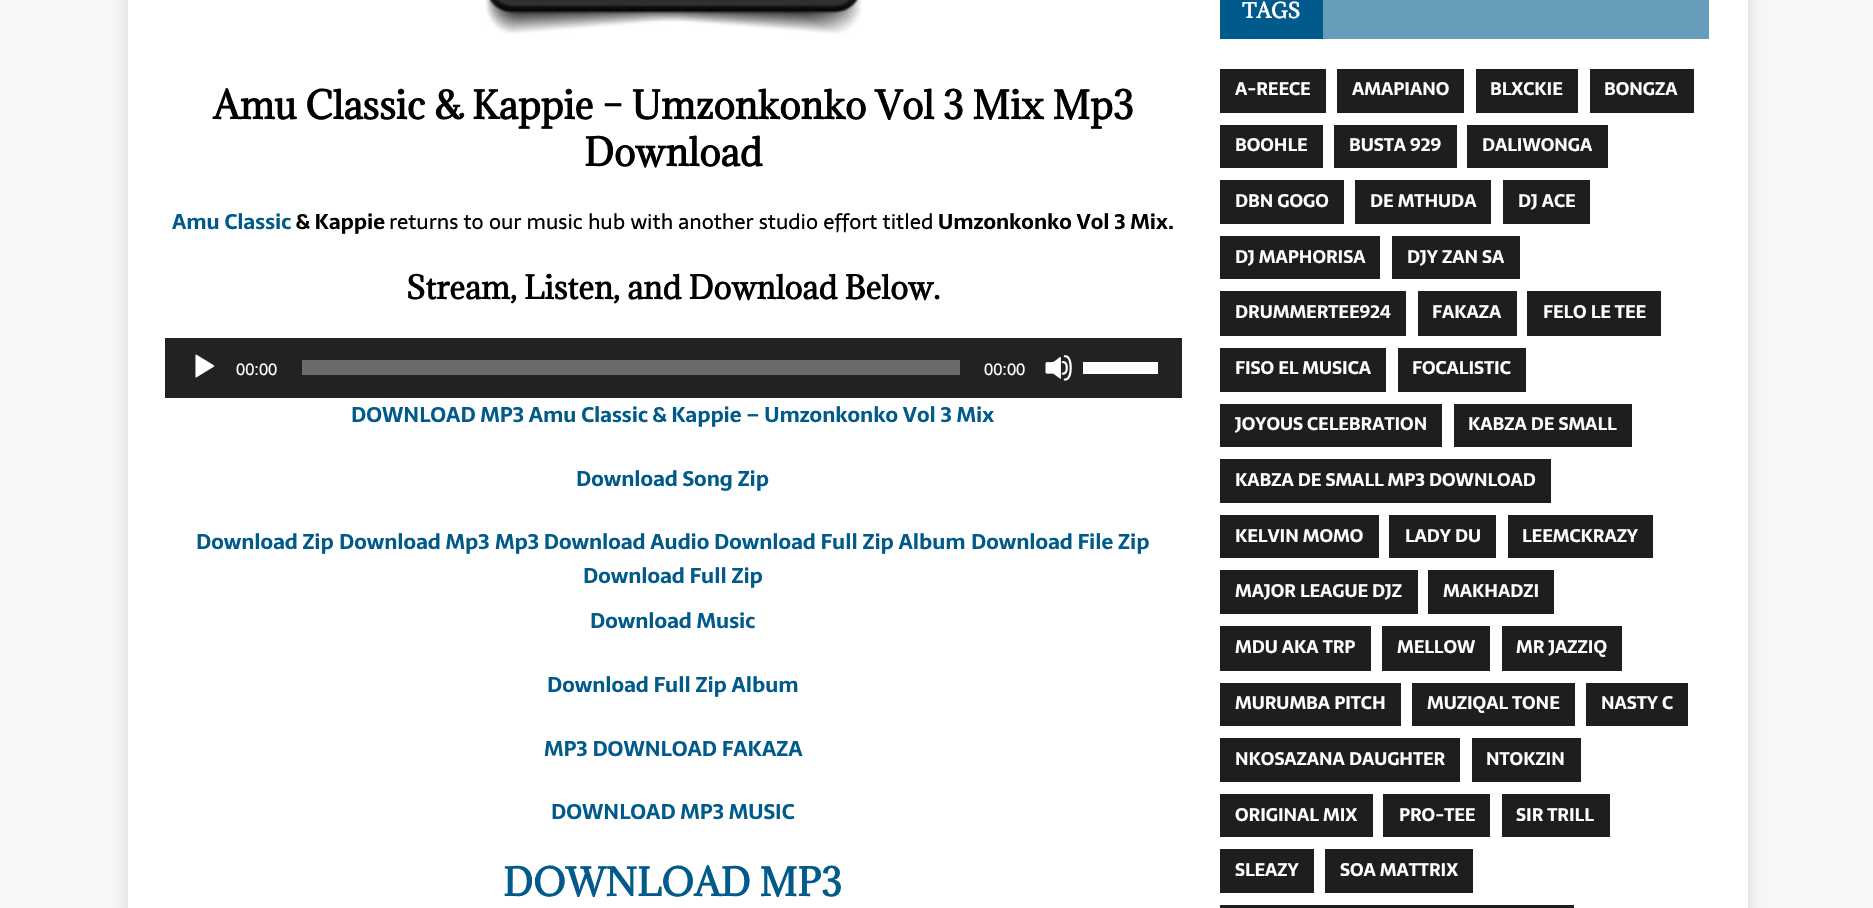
#include "include/core/SkBlurTypes.h"
#include "include/core/SkCanvas.h"
#include "include/core/SkData.h"
#include "include/core/SkFont.h"
#include "include/core/SkFontMgr.h"
#include "include/core/SkImage.h"
#include "include/core/SkMaskFilter.h"
#include "include/core/SkPaint.h"
#include "include/core/SkPathBuilder.h"
#include "include/core/SkTextBlob.h"
#include "include/effects/SkDashPathEffect.h"
#include "include/effects/SkGradientShader.h"
#include "include/utils/SkParsePath.h"

extern sk_sp<SkFontMgr> fontMgr;

void draw(SkCanvas* canvas) {
    SkPaint p;
    p.setAntiAlias(true);
    auto font = [&](const char* family, int weight, float size, bool italic = false) {
        SkFontStyle style(weight, SkFontStyle::kNormal_Width,
            italic ? SkFontStyle::kItalic_Slant : SkFontStyle::kUpright_Slant);
        SkFont result(fontMgr->matchFamilyStyle(family, style), size);
        result.setSubpixel(true);
        return result;
    };
    auto drawPhoto = [&](const char* path, float l, float t, float r, float b) {
        auto image = SkImages::DeferredFromEncodedData(SkData::MakeFromFileName(path));
        canvas->drawImageRect(image, SkRect::MakeLTRB(l, t, r, b), SkSamplingOptions());
    };
    canvas->clear(0xFFF7F7F7);
    p.setColor(0x2B323232);
    p.setMaskFilter(SkMaskFilter::MakeBlur(kNormal_SkBlurStyle, 7.5f));
    canvas->drawRect(SkRect::MakeLTRB(128, -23, 1748, 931), p);
    p.setMaskFilter(nullptr);
    p.setColor(0xFFFFFFFF);
    canvas->drawRect(SkRect::MakeLTRB(128, 0, 1748, 908), p);
    drawPhoto("media/1.png", 485, 0, 862, 34);
    auto font1 = font("Adamina", 700, 36);
    p.setColor(0xFF000000);
    canvas->drawString("Amu Classic & Kappie – Umzonkonko Vol 3 Mix Mp3", 213, 119, font1, p);
    canvas->drawString("Download", 584, 166, font1, p);
    auto font2 = font("Sarala", 700, 21);
    p.setColor(0xFF005A8C);
    canvas->drawString("Amu Classic", 172, 229, font2, p);
    p.setColor(0xFF000000);
    canvas->drawString("& Kappie", 296, 229, font2, p);
    auto font3 = font("Sarala", 400, 21);
    canvas->drawString("returns to our music hub with another studio effort titled", 389, 229, font3, p);
    canvas->drawString("Umzonkonko Vol 3 Mix.", 938, 229, font2, p);
    auto font4 = font("Adamina", 700, 30);
    canvas->drawString("Stream, Listen, and Download Below.", 406, 299, font4, p);
    p.setColor(0xFF222222);
    canvas->drawRect(SkRect::MakeLTRB(165, 338, 1182, 398), p);
    drawPhoto("media/2.png", 195, 354, 215, 378);
    auto font5 = font("Liberation Sans", 400, 16.5f);
    p.setColor(0xFFFFFFFF);
    canvas->drawString("00:00", 236, 375, font5, p);
    p.setColor(0xFF6B6B6B);
    canvas->drawRect(SkRect::MakeLTRB(302, 360, 960, 375), p);
    p.setColor(0xFFFFFFFF);
    canvas->drawString("00:00", 984, 375, font5, p);
    drawPhoto("media/3.png", 1045, 355, 1072, 381);
    canvas->drawRect(SkRect::MakeLTRB(1083, 362, 1158, 374), p);
    p.setColor(0xFF005A8C);
    {
        const struct { const char* s; float x, y; } items[] = {
            {"DOWNLOAD MP3 Amu Classic & Kappie – Umzonkonko Vol 3 Mix", 351, 422},
            {"Download Song Zip", 576, 486},
            {"Download Zip", 196, 549},
            {"Download Mp3", 339, 549},
            {"Mp3 Download Audio", 495, 549},
            {"Download Full Zip Album", 714, 549},
            {"Download File Zip", 971, 549},
            {"Download Full Zip", 583, 583},
            {"Download Music", 590, 628},
            {"Download Full Zip Album", 547, 692},
            {"MP3 DOWNLOAD FAKAZA", 544, 756},
            {"DOWNLOAD MP3 MUSIC", 551, 819},
        };
        for (auto [s, x, y] : items) {
            canvas->drawString(s, x, y, font2, p);
        }
    }
    canvas->drawString("DOWNLOAD MP3", 503, 896, font1, p);
    p.setColor(0xFF669CBA);
    canvas->drawRect(SkRect::MakeLTRB(1323, 0, 1709, 39), p);
    p.setColor(0xFF005A8C);
    canvas->drawRect(SkRect::MakeLTRB(1220, 0, 1323, 39), p);
    auto font6 = font("Adamina", 700, 19.5f);
    p.setColor(0xFFFFFFFF);
    canvas->drawString("TAGS", 1242, 18, font6, p);
    p.setColor(0xFF1F1E1E);
    canvas->drawRect(SkRect::MakeLTRB(1220, 69, 1326, 113), p);
    auto font7 = font("Sarala", 700, 18);
    p.setColor(0xFFFFFFFF);
    canvas->drawString("A-REECE", 1235, 95, font7, p);
    p.setColor(0xFF1F1E1E);
    canvas->drawRect(SkRect::MakeLTRB(1337, 69, 1464, 113), p);
    p.setColor(0xFFFFFFFF);
    canvas->drawString("AMAPIANO", 1352, 95, font7, p);
    p.setColor(0xFF1F1E1E);
    canvas->drawRect(SkRect::MakeLTRB(1476, 69, 1578, 113), p);
    p.setColor(0xFFFFFFFF);
    canvas->drawString("BLXCKIE", 1490, 95, font7, p);
    p.setColor(0xFF1F1E1E);
    canvas->drawRect(SkRect::MakeLTRB(1590, 69, 1694, 113), p);
    p.setColor(0xFFFFFFFF);
    canvas->drawString("BONGZA", 1604, 95, font7, p);
    p.setColor(0xFF1F1E1E);
    canvas->drawRect(SkRect::MakeLTRB(1220, 125, 1323, 168), p);
    p.setColor(0xFFFFFFFF);
    canvas->drawString("BOOHLE", 1235, 151, font7, p);
    p.setColor(0xFF1F1E1E);
    canvas->drawRect(SkRect::MakeLTRB(1334, 125, 1457, 168), p);
    p.setColor(0xFFFFFFFF);
    canvas->drawString("BUSTA 929", 1349, 151, font7, p);
    p.setColor(0xFF1F1E1E);
    canvas->drawRect(SkRect::MakeLTRB(1467, 125, 1608, 168), p);
    p.setColor(0xFFFFFFFF);
    canvas->drawString("DALIWONGA", 1482, 151, font7, p);
    p.setColor(0xFF1F1E1E);
    canvas->drawRect(SkRect::MakeLTRB(1220, 180, 1344, 224), p);
    p.setColor(0xFFFFFFFF);
    canvas->drawString("DBN GOGO", 1235, 207, font7, p);
    p.setColor(0xFF1F1E1E);
    canvas->drawRect(SkRect::MakeLTRB(1355, 180, 1491, 224), p);
    p.setColor(0xFFFFFFFF);
    canvas->drawString("DE MTHUDA", 1370, 207, font7, p);
    p.setColor(0xFF1F1E1E);
    canvas->drawRect(SkRect::MakeLTRB(1503, 180, 1590, 224), p);
    p.setColor(0xFFFFFFFF);
    canvas->drawString("DJ ACE", 1518, 207, font7, p);
    p.setColor(0xFF1F1E1E);
    canvas->drawRect(SkRect::MakeLTRB(1220, 236, 1380, 279), p);
    p.setColor(0xFFFFFFFF);
    canvas->drawString("DJ MAPHORISA", 1235, 263, font7, p);
    p.setColor(0xFF1F1E1E);
    canvas->drawRect(SkRect::MakeLTRB(1392, 236, 1520, 279), p);
    p.setColor(0xFFFFFFFF);
    canvas->drawString("DJY ZAN SA", 1407, 263, font7, p);
    p.setColor(0xFF1F1E1E);
    canvas->drawRect(SkRect::MakeLTRB(1220, 291, 1406, 336), p);
    p.setColor(0xFFFFFFFF);
    canvas->drawString("DRUMMERTEE924", 1235, 318, font7, p);
    p.setColor(0xFF1F1E1E);
    canvas->drawRect(SkRect::MakeLTRB(1418, 291, 1517, 336), p);
    p.setColor(0xFFFFFFFF);
    canvas->drawString("FAKAZA", 1432, 318, font7, p);
    p.setColor(0xFF1F1E1E);
    canvas->drawRect(SkRect::MakeLTRB(1527, 291, 1661, 336), p);
    p.setColor(0xFFFFFFFF);
    canvas->drawString("FELO LE TEE", 1543, 318, font7, p);
    p.setColor(0xFF1F1E1E);
    canvas->drawRect(SkRect::MakeLTRB(1220, 348, 1386, 392), p);
    p.setColor(0xFFFFFFFF);
    canvas->drawString("FISO EL MUSICA", 1235, 374, font7, p);
    p.setColor(0xFF1F1E1E);
    canvas->drawRect(SkRect::MakeLTRB(1398, 348, 1526, 392), p);
    p.setColor(0xFFFFFFFF);
    canvas->drawString("FOCALISTIC", 1412, 374, font7, p);
    p.setColor(0xFF1F1E1E);
    canvas->drawRect(SkRect::MakeLTRB(1220, 404, 1442, 447), p);
    p.setColor(0xFFFFFFFF);
    canvas->drawString("JOYOUS CELEBRATION", 1235, 430, font7, p);
    p.setColor(0xFF1F1E1E);
    canvas->drawRect(SkRect::MakeLTRB(1454, 404, 1632, 447), p);
    p.setColor(0xFFFFFFFF);
    canvas->drawString("KABZA DE SMALL", 1468, 430, font7, p);
    p.setColor(0xFF1F1E1E);
    canvas->drawRect(SkRect::MakeLTRB(1220, 459, 1551, 503), p);
    p.setColor(0xFFFFFFFF);
    canvas->drawString("KABZA DE SMALL MP3 DOWNLOAD", 1235, 486, font7, p);
    p.setColor(0xFF1F1E1E);
    canvas->drawRect(SkRect::MakeLTRB(1220, 515, 1379, 558), p);
    p.setColor(0xFFFFFFFF);
    canvas->drawString("KELVIN MOMO", 1235, 542, font7, p);
    p.setColor(0xFF1F1E1E);
    canvas->drawRect(SkRect::MakeLTRB(1389, 515, 1496, 558), p);
    p.setColor(0xFFFFFFFF);
    canvas->drawString("LADY DU", 1405, 542, font7, p);
    p.setColor(0xFF1F1E1E);
    canvas->drawRect(SkRect::MakeLTRB(1508, 515, 1653, 558), p);
    p.setColor(0xFFFFFFFF);
    canvas->drawString("LEEMCKRAZY", 1522, 542, font7, p);
    p.setColor(0xFF1F1E1E);
    canvas->drawRect(SkRect::MakeLTRB(1220, 570, 1418, 614), p);
    p.setColor(0xFFFFFFFF);
    canvas->drawString("MAJOR LEAGUE DJZ", 1235, 597, font7, p);
    p.setColor(0xFF1F1E1E);
    canvas->drawRect(SkRect::MakeLTRB(1428, 570, 1554, 614), p);
    p.setColor(0xFFFFFFFF);
    canvas->drawString("MAKHADZI", 1443, 597, font7, p);
    p.setColor(0xFF1F1E1E);
    canvas->drawRect(SkRect::MakeLTRB(1220, 626, 1371, 671), p);
    p.setColor(0xFFFFFFFF);
    canvas->drawString("MDU AKA TRP", 1235, 653, font7, p);
    p.setColor(0xFF1F1E1E);
    canvas->drawRect(SkRect::MakeLTRB(1382, 626, 1490, 671), p);
    p.setColor(0xFFFFFFFF);
    canvas->drawString("MELLOW", 1397, 653, font7, p);
    p.setColor(0xFF1F1E1E);
    canvas->drawRect(SkRect::MakeLTRB(1502, 626, 1622, 671), p);
    p.setColor(0xFFFFFFFF);
    canvas->drawString("MR JAZZIQ", 1516, 653, font7, p);
    p.setColor(0xFF1F1E1E);
    canvas->drawRect(SkRect::MakeLTRB(1220, 683, 1401, 726), p);
    p.setColor(0xFFFFFFFF);
    canvas->drawString("MURUMBA PITCH", 1235, 709, font7, p);
    p.setColor(0xFF1F1E1E);
    canvas->drawRect(SkRect::MakeLTRB(1412, 683, 1575, 726), p);
    p.setColor(0xFFFFFFFF);
    canvas->drawString("MUZIQAL TONE", 1427, 709, font7, p);
    p.setColor(0xFF1F1E1E);
    canvas->drawRect(SkRect::MakeLTRB(1586, 683, 1688, 726), p);
    p.setColor(0xFFFFFFFF);
    canvas->drawString("NASTY C", 1601, 709, font7, p);
    p.setColor(0xFF1F1E1E);
    canvas->drawRect(SkRect::MakeLTRB(1220, 738, 1460, 782), p);
    p.setColor(0xFFFFFFFF);
    canvas->drawString("NKOSAZANA DAUGHTER", 1235, 765, font7, p);
    p.setColor(0xFF1F1E1E);
    canvas->drawRect(SkRect::MakeLTRB(1472, 738, 1581, 782), p);
    p.setColor(0xFFFFFFFF);
    canvas->drawString("NTOKZIN", 1486, 765, font7, p);
    p.setColor(0xFF1F1E1E);
    canvas->drawRect(SkRect::MakeLTRB(1220, 794, 1373, 837), p);
    p.setColor(0xFFFFFFFF);
    canvas->drawString("ORIGINAL MIX", 1235, 821, font7, p);
    p.setColor(0xFF1F1E1E);
    canvas->drawRect(SkRect::MakeLTRB(1383, 794, 1490, 837), p);
    p.setColor(0xFFFFFFFF);
    canvas->drawString("PRO-TEE", 1399, 821, font7, p);
    p.setColor(0xFF1F1E1E);
    canvas->drawRect(SkRect::MakeLTRB(1502, 794, 1610, 837), p);
    p.setColor(0xFFFFFFFF);
    canvas->drawString("SIR TRILL", 1516, 821, font7, p);
    p.setColor(0xFF1F1E1E);
    canvas->drawRect(SkRect::MakeLTRB(1220, 849, 1314, 893), p);
    p.setColor(0xFFFFFFFF);
    canvas->drawString("SLEAZY", 1235, 876, font7, p);
    p.setColor(0xFF1F1E1E);
    canvas->drawRect(SkRect::MakeLTRB(1325, 849, 1473, 893), p);
    p.setColor(0xFFFFFFFF);
    canvas->drawString("SOA MATTRIX", 1340, 876, font7, p);
    p.setColor(0xFF1F1E1E);
    canvas->drawRect(SkRect::MakeLTRB(1220, 905, 1574, 908), p);
}
